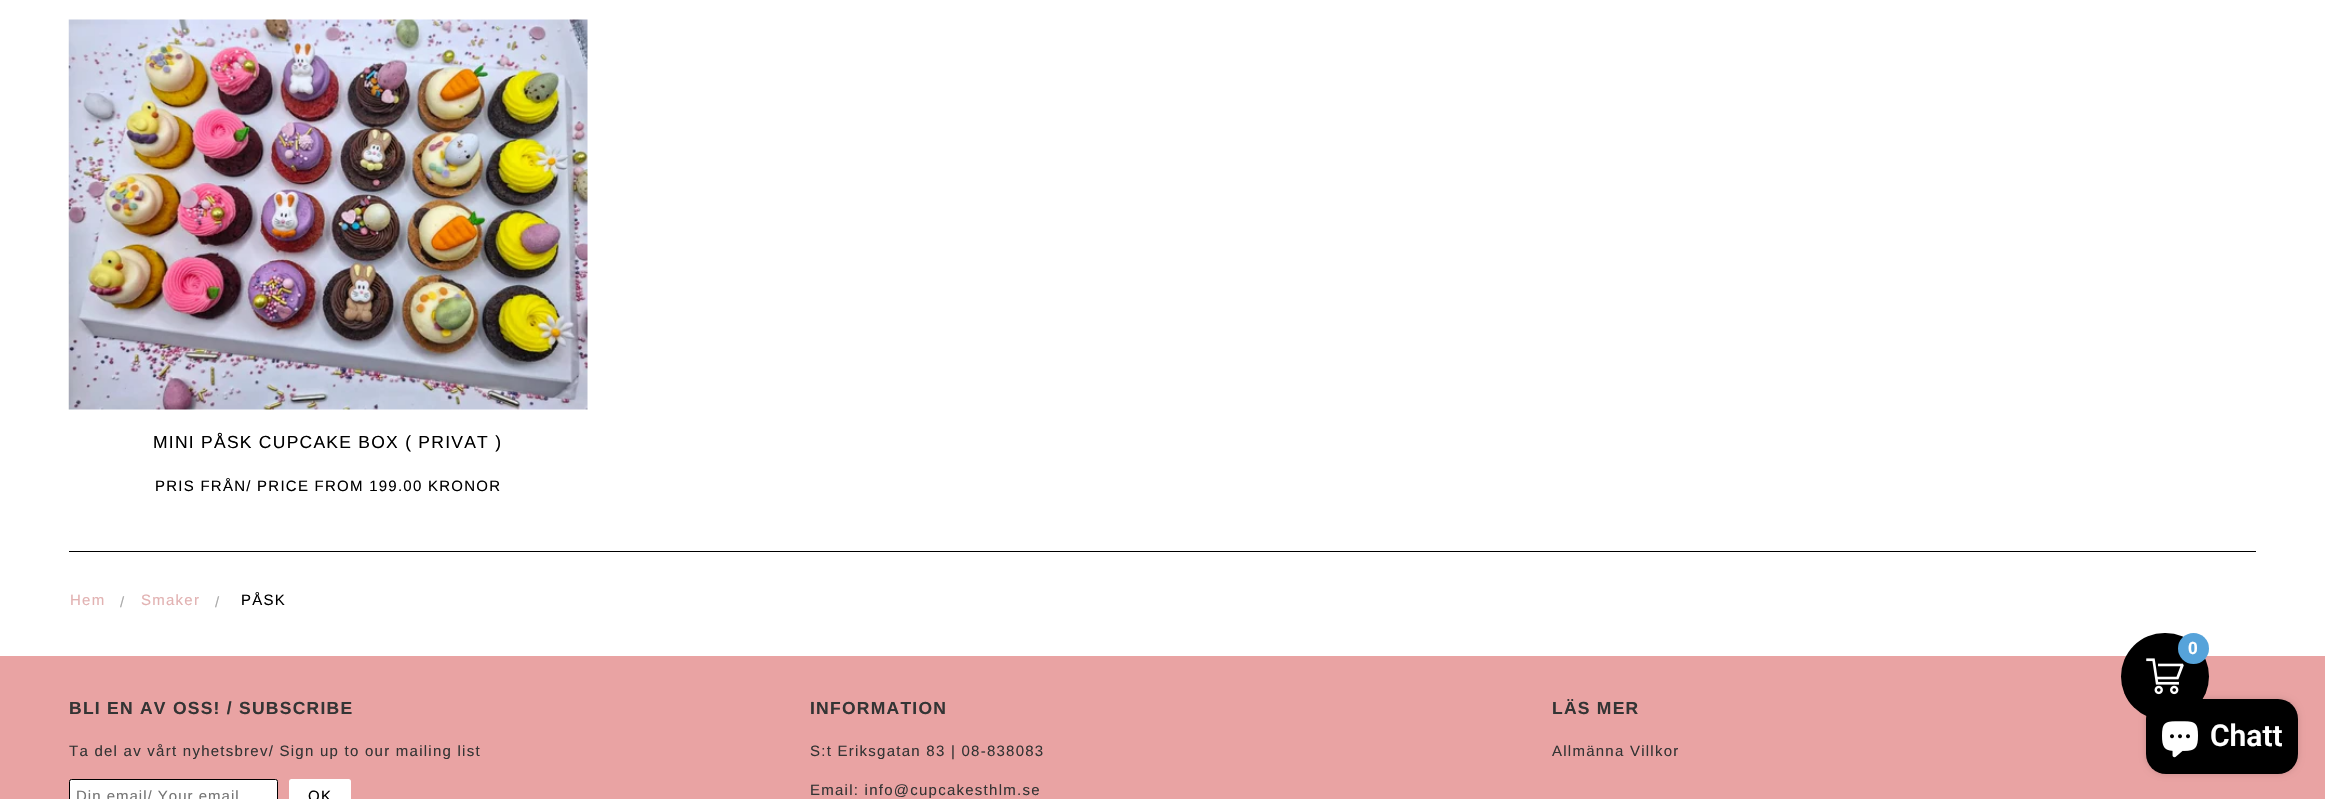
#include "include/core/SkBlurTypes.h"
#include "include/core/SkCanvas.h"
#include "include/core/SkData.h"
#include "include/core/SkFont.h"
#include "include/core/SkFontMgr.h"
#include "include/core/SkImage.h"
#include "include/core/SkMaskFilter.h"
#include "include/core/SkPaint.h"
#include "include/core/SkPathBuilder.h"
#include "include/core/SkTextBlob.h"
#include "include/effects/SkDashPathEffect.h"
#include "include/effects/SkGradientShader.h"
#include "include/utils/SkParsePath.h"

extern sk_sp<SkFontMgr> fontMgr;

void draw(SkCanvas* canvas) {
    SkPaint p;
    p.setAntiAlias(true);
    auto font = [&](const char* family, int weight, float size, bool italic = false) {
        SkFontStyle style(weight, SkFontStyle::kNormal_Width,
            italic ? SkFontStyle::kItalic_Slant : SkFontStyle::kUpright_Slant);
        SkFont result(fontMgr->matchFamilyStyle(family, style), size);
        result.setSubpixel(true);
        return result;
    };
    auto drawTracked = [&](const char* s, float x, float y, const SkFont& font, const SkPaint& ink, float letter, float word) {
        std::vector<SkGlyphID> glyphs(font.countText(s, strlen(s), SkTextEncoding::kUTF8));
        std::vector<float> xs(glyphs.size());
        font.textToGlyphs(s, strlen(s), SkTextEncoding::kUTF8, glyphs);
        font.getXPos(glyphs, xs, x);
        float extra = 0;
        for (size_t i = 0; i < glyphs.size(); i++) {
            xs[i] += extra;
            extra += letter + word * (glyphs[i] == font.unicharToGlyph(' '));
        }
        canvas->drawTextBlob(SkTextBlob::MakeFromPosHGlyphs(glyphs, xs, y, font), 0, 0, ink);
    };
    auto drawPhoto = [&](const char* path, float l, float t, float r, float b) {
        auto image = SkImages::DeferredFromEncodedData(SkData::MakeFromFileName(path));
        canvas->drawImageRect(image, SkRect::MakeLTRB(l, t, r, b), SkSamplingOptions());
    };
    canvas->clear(0xFFFFFFFF);
    drawPhoto("media/1.png", 68, 19, 588, 410);
    auto font1 = font("Liberation Sans", 400, 17.5f);
    p.setColor(0xFF000000);
    drawTracked("MINI PÅSK CUPCAKE BOX ( PRIVAT )", 153, 448, font1, p, 1.25f, 0);
    auto font2 = font("Liberation Sans", 400, 15);
    drawTracked("PRIS FRÅN/ PRICE FROM 199.00 KRONOR", 155, 491, font2, p, 1.25f, 0);
    canvas->drawRect(SkRect::MakeLTRB(69, 551, 2256, 552), p);
    p.setColor(0xFFE2B2B2);
    drawTracked("Hem", 70, 605, font2, p, 1.25f, 0);
    p.setColor(0xFFAAAAAA);
    drawTracked("/", 120, 607, font2, p, 1.25f, 0);
    p.setColor(0xFFE2B2B2);
    drawTracked("Smaker", 141, 605, font2, p, 1.25f, 0);
    p.setColor(0xFFAAAAAA);
    drawTracked("/", 215, 607, font2, p, 1.25f, 0);
    p.setColor(0xFF000000);
    drawTracked("PÅSK", 241, 605, font2, p, 1.25f, 0);
    p.setColor(0xFFE9A3A3);
    canvas->drawRect(SkRect::MakeLTRB(0, 656, 2325, 799), p);
    p.setColor(0xFF000000);
    canvas->drawRoundRect(SkRect::MakeLTRB(2121, 633, 2209, 720), 43.5f, 43.5f, p);
    drawPhoto("media/2.png", 2146, 658, 2184, 695);
    p.setColor(0xFF56A3DA);
    canvas->drawCircle(2193.5f, 648.5f, 15.5f, p);
    auto font3 = font("Liberation Sans", 700, 17.5f);
    p.setColor(0xFFFFFFFF);
    drawTracked("0", 2188, 654, font3, p, 1.25f, 0);
    p.setColor(0xFF343434);
    drawTracked("BLI EN AV OSS! / SUBSCRIBE", 69, 714, font3, p, 1.25f, 0);
    drawTracked("Ta del av vårt nyhetsbrev/ Sign up to our mailing list", 69, 756, font2, p, 1.25f, 0);
    p.setColor(0xFFFFFFFF);
    canvas->drawRoundRect(SkRect::MakeLTRB(69.5f, 779.5f, 277.5f, 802.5f), 2, 2, p);
    p.setStyle(SkPaint::kStroke_Style);
    p.setStrokeWidth(1);
    p.setColor(0xFF000000);
    canvas->drawRoundRect(SkRect::MakeLTRB(69.5f, 779.5f, 277.5f, 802.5f), 2, 2, p);
    p.setStyle(SkPaint::kFill_Style);
    p.setColor(0xFF757575);
    drawTracked("Din email/ Your email", 76, 801, font2, p, 1, 0);
    p.setColor(0xFFFFFFFF);
    canvas->drawRoundRect(SkRect::MakeLTRB(289, 779, 351, 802), 2.5f, 2.5f, p);
    p.setColor(0xFF000000);
    drawTracked("OK", 308, 801, font2, p, 1.25f, 0);
    p.setColor(0xFF343434);
    drawTracked("INFORMATION", 810, 714, font3, p, 1.25f, 0);
    drawTracked("S:t Eriksgatan 83 | 08-838083", 810, 756, font2, p, 1.25f, 0);
    drawTracked("Email: info@cupcakesthlm.se", 810, 795, font2, p, 1.25f, 0);
    drawTracked("LÄS MER", 1552, 714, font3, p, 1.25f, 0);
    drawTracked("Allmänna Villkor", 1552, 756, font2, p, 1.25f, 0);
    p.setColor(0x26000000);
    p.setMaskFilter(SkMaskFilter::MakeBlur(kNormal_SkBlurStyle, 3));
    canvas->drawRoundRect(SkRect::MakeLTRB(2146, 699, 2298, 774), 20, 20, p);
    p.setMaskFilter(nullptr);
    p.setColor(0xFF000000);
    canvas->drawRoundRect(SkRect::MakeLTRB(2146, 699, 2298, 774), 20, 20, p);
    drawPhoto("media/3.png", 2162, 721, 2198, 758);
    auto font4 = font("Roboto", 600, 30);
    p.setColor(0xFFFFFFFF);
    canvas->drawString("Chatt", 2210, 746, font4, p);
}
